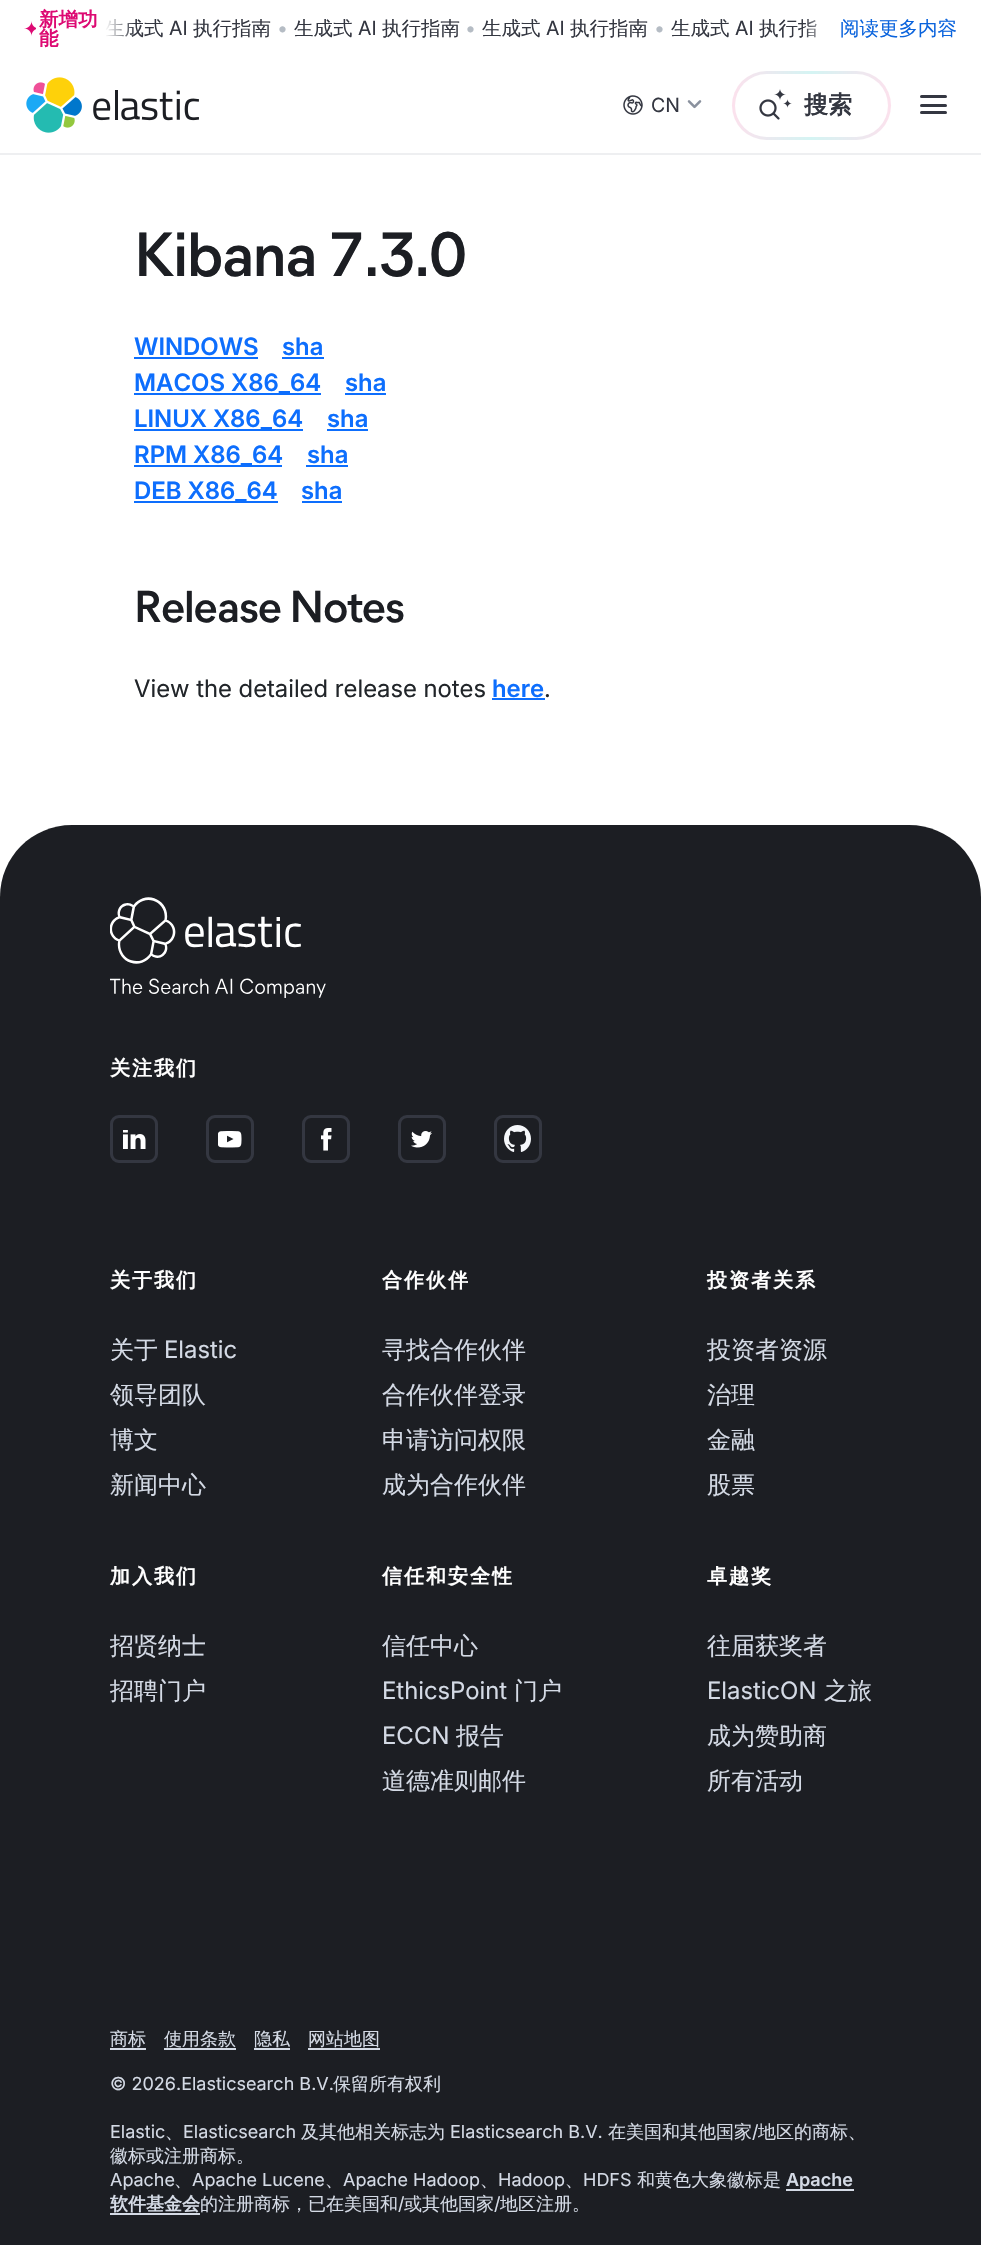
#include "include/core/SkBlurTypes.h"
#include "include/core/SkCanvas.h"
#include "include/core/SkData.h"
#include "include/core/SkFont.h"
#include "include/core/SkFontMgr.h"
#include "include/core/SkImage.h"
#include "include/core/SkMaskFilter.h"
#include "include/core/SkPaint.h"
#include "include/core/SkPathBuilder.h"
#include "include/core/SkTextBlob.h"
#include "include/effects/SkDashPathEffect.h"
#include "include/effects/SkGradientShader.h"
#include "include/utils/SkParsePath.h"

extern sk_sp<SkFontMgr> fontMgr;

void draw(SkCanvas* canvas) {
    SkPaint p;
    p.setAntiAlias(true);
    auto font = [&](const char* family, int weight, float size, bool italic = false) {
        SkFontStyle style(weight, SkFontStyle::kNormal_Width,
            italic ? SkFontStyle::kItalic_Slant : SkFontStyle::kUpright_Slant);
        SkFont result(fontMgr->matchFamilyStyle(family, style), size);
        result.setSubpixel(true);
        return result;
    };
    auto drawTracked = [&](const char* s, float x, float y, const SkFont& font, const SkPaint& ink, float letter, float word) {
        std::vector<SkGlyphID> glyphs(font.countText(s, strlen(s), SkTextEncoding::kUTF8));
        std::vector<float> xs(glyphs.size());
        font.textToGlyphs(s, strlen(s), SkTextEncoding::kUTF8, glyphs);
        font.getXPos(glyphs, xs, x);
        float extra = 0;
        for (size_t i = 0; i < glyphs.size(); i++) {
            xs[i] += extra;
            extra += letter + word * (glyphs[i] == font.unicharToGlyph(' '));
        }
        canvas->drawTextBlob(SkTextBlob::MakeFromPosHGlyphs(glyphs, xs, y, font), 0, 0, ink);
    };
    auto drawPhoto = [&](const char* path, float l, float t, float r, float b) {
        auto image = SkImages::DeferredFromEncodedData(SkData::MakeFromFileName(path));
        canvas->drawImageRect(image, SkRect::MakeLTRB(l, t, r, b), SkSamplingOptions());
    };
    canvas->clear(0xFFFFFFFF);
    p.setColor(0xFFEEEFF1);
    canvas->drawRect(SkRect::MakeLTRB(0, 153, 981, 155), p);
    drawPhoto("media/1.png", 24, 21, 36, 36);
    auto font1 = font("WenQuanYi Zen Hei", 700, 19.5f);
    p.setColor(0xFFDD0A73);
    canvas->drawString("新增功", 39, 26, font1, p);
    canvas->drawString("能", 39, 45, font1, p);
    auto font2 = font("WenQuanYi Zen Hei", 500, 19.5f);
    p.setColor(0xFF343741);
    canvas->drawString("生成式", 105, 35, font2, p);
    auto font3 = font("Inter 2", 400, 19.5f);
    canvas->drawString("AI", 169, 35, font3, p);
    canvas->drawString("执行指南", 193, 35, font2, p);
    p.setColor(0xFFB5BCC4);
    canvas->drawString("•", 277, 35, font3, p);
    p.setColor(0xFF343741);
    canvas->drawString("生成式", 294, 35, font2, p);
    canvas->drawString("AI", 358, 35, font3, p);
    canvas->drawString("执行指南", 382, 35, font2, p);
    p.setColor(0xFFB5BCC4);
    canvas->drawString("•", 465, 35, font3, p);
    p.setColor(0xFF343741);
    canvas->drawString("生成式", 482, 35, font2, p);
    canvas->drawString("AI", 546, 35, font3, p);
    canvas->drawString("执行指南", 570, 35, font2, p);
    p.setColor(0xFFB5BCC4);
    canvas->drawString("•", 654, 35, font3, p);
    p.setColor(0xFF343741);
    canvas->drawString("生成式", 671, 35, font2, p);
    canvas->drawString("AI", 735, 35, font3, p);
    canvas->drawString("执行指", 759, 35, font2, p);
    {
        const SkColor colors[] = {0xFFFFFFFF, 0x00FFFFFF};
        const float stops[] = {0, 1};
        const SkPoint ends[] = {{105, 29}, {135, 29}};
        p.setShader(SkGradientShader::MakeLinear(ends, colors, stops, 2, SkTileMode::kClamp));
        p.setAlpha(255);
    }
    canvas->drawRect(SkRect::MakeLTRB(105, 18, 134, 37), p);
    {
        const SkColor colors[] = {0xFFFFFFFF, 0x00FFFFFF};
        const float stops[] = {0, 1};
        const SkPoint ends[] = {{834, 29}, {804, 29}};
        p.setShader(SkGradientShader::MakeLinear(ends, colors, stops, 2, SkTileMode::kClamp));
        p.setAlpha(255);
    }
    canvas->drawRect(SkRect::MakeLTRB(805, 19, 817, 38), p);
    p.setShader(nullptr);
    p.setColor(0xFF0B64DD);
    canvas->drawString("阅读更多内容", 840, 35, font2, p);
    drawPhoto("media/2.png", 26, 77, 199, 133);
    drawPhoto("media/3.png", 623, 95, 643, 115);
    p.setColor(0xFF343741);
    canvas->drawString("CN", 651, 112, font3, p);
    drawPhoto("media/4.png", 687, 100, 702, 109);
    {
        const SkColor colors[] = {0xFFFCE1ED, 0xFFD4F4F3, 0xFFFCE1ED, 0xFFD4F4F3, 0xFFFCE1ED};
        const float stops[] = {0, 0.25f, 0.5f, 0.75f, 1};
        const SkPoint ends[] = {{732, 105}, {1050, 105}};
        p.setShader(SkGradientShader::MakeLinear(ends, colors, stops, 5, SkTileMode::kClamp));
        p.setAlpha(255);
    }
    canvas->drawRoundRect(SkRect::MakeLTRB(732, 71, 891, 140), 34.5f, 34.5f, p);
    p.setShader(nullptr);
    p.setColor(0xFFFFFFFF);
    canvas->drawRoundRect(SkRect::MakeLTRB(735, 74, 888, 137), 31.5f, 31.5f, p);
    drawPhoto("media/5.png", 759, 89, 792, 120);
    auto font4 = font("WenQuanYi Zen Hei", 700, 24);
    p.setColor(0xFF343741);
    canvas->drawString("搜索", 804, 113, font4, p);
    canvas->drawRoundRect(SkRect::MakeLTRB(920, 95, 947, 98), 1.5f, 1.5f, p);
    canvas->drawRoundRect(SkRect::MakeLTRB(920, 104, 947, 107), 1.5f, 1.5f, p);
    canvas->drawRoundRect(SkRect::MakeLTRB(920, 111, 947, 114), 1.5f, 1.5f, p);
    auto font5 = font("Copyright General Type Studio", 600, 62.25f);
    p.setColor(0xFF1C1E23);
    drawTracked("Kibana 7.3.0", 134, 276, font5, p, -1.25f, 0);
    auto font6 = font("Inter 2", 600, 24);
    p.setColor(0xFF0D6EFD);
    canvas->drawString("WINDOWS", 134, 355, font6, p);
    canvas->drawRect(SkRect::MakeLTRB(134, 357, 258, 359), p);
    canvas->drawString("sha", 282, 355, font6, p);
    canvas->drawRect(SkRect::MakeLTRB(282, 357, 324, 359), p);
    canvas->drawRect(SkRect::MakeLTRB(134, 393, 321, 395), p);
    canvas->drawString("MACOS X86_64", 134, 391, font6, p);
    canvas->drawString("sha", 345, 391, font6, p);
    canvas->drawRect(SkRect::MakeLTRB(345, 393, 386, 395), p);
    canvas->drawRect(SkRect::MakeLTRB(134, 429, 303, 431), p);
    canvas->drawString("LINUX X86_64", 134, 427, font6, p);
    canvas->drawString("sha", 327, 427, font6, p);
    canvas->drawRect(SkRect::MakeLTRB(327, 429, 368, 431), p);
    canvas->drawRect(SkRect::MakeLTRB(134, 465, 282, 467), p);
    canvas->drawString("RPM X86_64", 134, 463, font6, p);
    canvas->drawString("sha", 307, 463, font6, p);
    canvas->drawRect(SkRect::MakeLTRB(306, 465, 348, 467), p);
    canvas->drawRect(SkRect::MakeLTRB(134, 501, 278, 503), p);
    canvas->drawString("DEB X86_64", 134, 499, font6, p);
    canvas->drawString("sha", 301, 499, font6, p);
    canvas->drawRect(SkRect::MakeLTRB(302, 501, 342, 503), p);
    auto font7 = font("Copyright General Type Studio", 600, 44.5f);
    p.setColor(0xFF1C1E23);
    drawTracked("Release Notes", 134, 622, font7, p, -0.9f, 0);
    auto font8 = font("Inter", 400, 24);
    p.setColor(0xFF212529);
    canvas->drawString("View the detailed release notes", 134, 697, font8, p);
    p.setColor(0xFF0D6EFD);
    canvas->drawString("here", 492, 697, font6, p);
    canvas->drawRect(SkRect::MakeLTRB(492, 698, 545, 700), p);
    p.setColor(0xFF212529);
    canvas->drawString(".", 544, 697, font8, p);
    p.setColor(0xFF1C1E23);
    canvas->drawPath(SkPathBuilder().moveTo(72, 825).lineTo(909, 825).cubicTo(949, 825, 981, 857, 981, 897).lineTo(981, 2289).lineTo(0, 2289).lineTo(0, 897).cubicTo(0, 857, 32, 825, 72, 825).close().detach(), p);
    drawPhoto("media/6.png", 110, 897, 326, 998);
    auto font9 = font("WenQuanYi Zen Hei", 700, 20);
    p.setColor(0xFFFFFFFF);
    drawTracked("关注我们", 110, 1075, font9, p, 2, 0);
    p.setStyle(SkPaint::kStroke_Style);
    p.setStrokeWidth(3);
    p.setColor(0xFF343741);
    canvas->drawRoundRect(SkRect::MakeLTRB(111.5f, 1116.5f, 156.5f, 1161.5f), 7.5f, 7.5f, p);
    drawPhoto("media/7.png", 123, 1130, 146, 1149);
    canvas->drawRoundRect(SkRect::MakeLTRB(207.5f, 1116.5f, 252.5f, 1161.5f), 7.5f, 7.5f, p);
    drawPhoto("media/8.png", 218, 1131, 242, 1148);
    canvas->drawRoundRect(SkRect::MakeLTRB(303.5f, 1116.5f, 348.5f, 1161.5f), 7.5f, 7.5f, p);
    drawPhoto("media/9.png", 321, 1128, 332, 1151);
    canvas->drawRoundRect(SkRect::MakeLTRB(399.5f, 1116.5f, 444.5f, 1161.5f), 7.5f, 7.5f, p);
    drawPhoto("media/10.png", 411, 1131, 432, 1148);
    canvas->drawRoundRect(SkRect::MakeLTRB(495.5f, 1116.5f, 540.5f, 1161.5f), 7.5f, 7.5f, p);
    drawPhoto("media/11.png", 504, 1125, 531, 1152);
    p.setStyle(SkPaint::kFill_Style);
    p.setColor(0xFFFFFFFF);
    drawTracked("关于我们", 110, 1287, font9, p, 2, 0);
    auto font10 = font("WenQuanYi Zen Hei", 500, 24);
    p.setColor(0xFFD4DAE5);
    canvas->drawString("关于", 110, 1358, font10, p);
    canvas->drawString("Elastic", 164, 1358, font8, p);
    {
        const struct { const char* s; float x, y; } items[] = {
            {"领导团队", 110, 1403},
            {"博文", 110, 1448},
            {"新闻中心", 110, 1493},
        };
        for (auto [s, x, y] : items) {
            canvas->drawString(s, x, y, font10, p);
        }
    }
    p.setColor(0xFFFFFFFF);
    drawTracked("加入我们", 110, 1583, font9, p, 2, 0);
    p.setColor(0xFFD4DAE5);
    canvas->drawString("招贤纳士", 110, 1654, font10, p);
    canvas->drawString("招聘门户", 110, 1699, font10, p);
    p.setColor(0xFFFFFFFF);
    drawTracked("合作伙伴", 382, 1287, font9, p, 2, 0);
    p.setColor(0xFFD4DAE5);
    {
        const struct { const char* s; float x, y; } items[] = {
            {"寻找合作伙伴", 382, 1358},
            {"合作伙伴登录", 382, 1403},
            {"申请访问权限", 382, 1448},
            {"成为合作伙伴", 382, 1493},
        };
        for (auto [s, x, y] : items) {
            canvas->drawString(s, x, y, font10, p);
        }
    }
    p.setColor(0xFFFFFFFF);
    drawTracked("信任和安全性", 382, 1583, font9, p, 2, 0);
    p.setColor(0xFFD4DAE5);
    canvas->drawString("信任中心", 382, 1654, font10, p);
    canvas->drawString("EthicsPoint", 382, 1699, font8, p);
    canvas->drawString("门户", 514, 1699, font10, p);
    canvas->drawString("ECCN", 382, 1744, font8, p);
    canvas->drawString("报告", 456, 1744, font10, p);
    canvas->drawString("道德准则邮件", 382, 1789, font10, p);
    p.setColor(0xFFFFFFFF);
    drawTracked("投资者关系", 707, 1287, font9, p, 2, 0);
    p.setColor(0xFFD4DAE5);
    {
        const struct { const char* s; float x, y; } items[] = {
            {"投资者资源", 707, 1358},
            {"治理", 707, 1403},
            {"金融", 707, 1448},
            {"股票", 707, 1493},
        };
        for (auto [s, x, y] : items) {
            canvas->drawString(s, x, y, font10, p);
        }
    }
    p.setColor(0xFFFFFFFF);
    drawTracked("卓越奖", 707, 1583, font9, p, 2, 0);
    p.setColor(0xFFD4DAE5);
    canvas->drawString("往届获奖者", 707, 1654, font10, p);
    canvas->drawString("ElasticON", 707, 1699, font8, p);
    {
        const struct { const char* s; float x, y; } items[] = {
            {"之旅", 824, 1699},
            {"成为赞助商", 707, 1744},
            {"所有活动", 707, 1789},
        };
        for (auto [s, x, y] : items) {
            canvas->drawString(s, x, y, font10, p);
        }
    }
    auto font11 = font("WenQuanYi Zen Hei", 500, 18);
    canvas->drawString("商标", 110, 2045, font11, p);
    canvas->drawRect(SkRect::MakeLTRB(110, 2048, 146, 2050), p);
    canvas->drawString("使用条款", 164, 2045, font11, p);
    canvas->drawRect(SkRect::MakeLTRB(164, 2048, 236, 2050), p);
    canvas->drawString("隐私", 254, 2045, font11, p);
    canvas->drawRect(SkRect::MakeLTRB(254, 2048, 290, 2050), p);
    canvas->drawString("网站地图", 308, 2045, font11, p);
    canvas->drawRect(SkRect::MakeLTRB(308, 2048, 380, 2050), p);
    auto font12 = font("Inter 2", 400, 18);
    canvas->drawString("© 2026.Elasticsearch B.V.", 110, 2090, font12, p);
    canvas->drawString("保留所有权利", 333, 2090, font11, p);
    canvas->drawString("Elastic", 110, 2138, font12, p);
    canvas->drawString("、", 165, 2138, font11, p);
    canvas->drawString("Elasticsearch", 183, 2138, font12, p);
    canvas->drawString("及其他相关标志为", 301, 2138, font11, p);
    canvas->drawString("Elasticsearch B.V.", 450, 2138, font12, p);
    canvas->drawString("在美国和其他国家", 608, 2138, font11, p);
    canvas->drawString("/", 752, 2138, font12, p);
    canvas->drawString("地区的商标、", 758, 2138, font11, p);
    canvas->drawString("徽标或注册商标。", 110, 2162, font11, p);
    canvas->drawString("Apache", 110, 2186, font12, p);
    canvas->drawString("、", 174, 2186, font11, p);
    canvas->drawString("Apache Lucene", 192, 2186, font12, p);
    canvas->drawString("、", 325, 2186, font11, p);
    canvas->drawString("Apache Hadoop", 343, 2186, font12, p);
    canvas->drawString("、", 480, 2186, font11, p);
    canvas->drawString("Hadoop", 498, 2186, font12, p);
    canvas->drawString("、", 565, 2186, font11, p);
    canvas->drawString("HDFS", 583, 2186, font12, p);
    canvas->drawString("和黄色大象徽标是", 637, 2186, font11, p);
    canvas->drawRect(SkRect::MakeLTRB(786, 2189, 854, 2191), p);
    auto font13 = font("Inter", 600, 18);
    canvas->drawString("Apache", 786, 2186, font13, p);
    auto font14 = font("WenQuanYi Zen Hei", 700, 18);
    canvas->drawString("软件基金会", 110, 2210, font14, p);
    canvas->drawRect(SkRect::MakeLTRB(110, 2213, 200, 2215), p);
    canvas->drawString("的注册商标，已在美国和", 200, 2210, font11, p);
    canvas->drawString("/", 398, 2210, font12, p);
    canvas->drawString("或其他国家", 404, 2210, font11, p);
    canvas->drawString("/", 494, 2210, font12, p);
    canvas->drawString("地区注册。", 500, 2210, font11, p);
}
